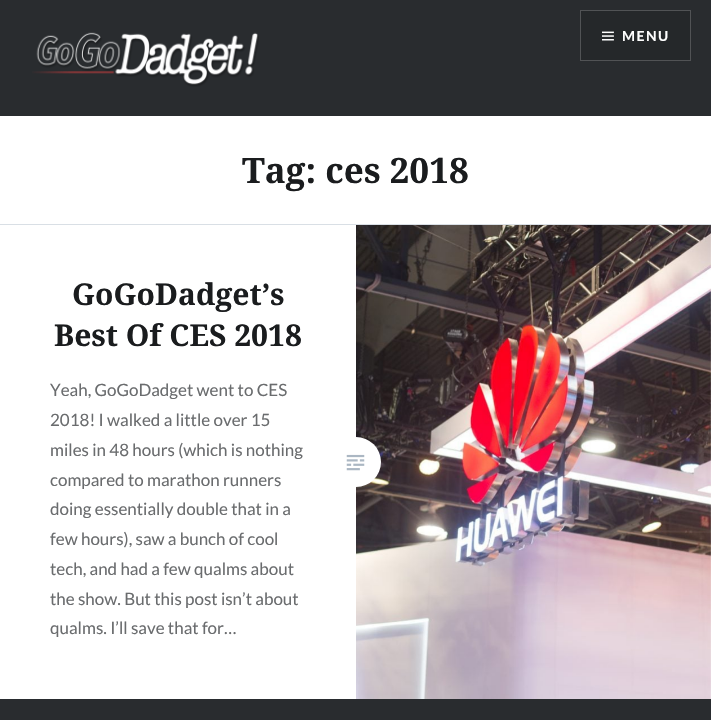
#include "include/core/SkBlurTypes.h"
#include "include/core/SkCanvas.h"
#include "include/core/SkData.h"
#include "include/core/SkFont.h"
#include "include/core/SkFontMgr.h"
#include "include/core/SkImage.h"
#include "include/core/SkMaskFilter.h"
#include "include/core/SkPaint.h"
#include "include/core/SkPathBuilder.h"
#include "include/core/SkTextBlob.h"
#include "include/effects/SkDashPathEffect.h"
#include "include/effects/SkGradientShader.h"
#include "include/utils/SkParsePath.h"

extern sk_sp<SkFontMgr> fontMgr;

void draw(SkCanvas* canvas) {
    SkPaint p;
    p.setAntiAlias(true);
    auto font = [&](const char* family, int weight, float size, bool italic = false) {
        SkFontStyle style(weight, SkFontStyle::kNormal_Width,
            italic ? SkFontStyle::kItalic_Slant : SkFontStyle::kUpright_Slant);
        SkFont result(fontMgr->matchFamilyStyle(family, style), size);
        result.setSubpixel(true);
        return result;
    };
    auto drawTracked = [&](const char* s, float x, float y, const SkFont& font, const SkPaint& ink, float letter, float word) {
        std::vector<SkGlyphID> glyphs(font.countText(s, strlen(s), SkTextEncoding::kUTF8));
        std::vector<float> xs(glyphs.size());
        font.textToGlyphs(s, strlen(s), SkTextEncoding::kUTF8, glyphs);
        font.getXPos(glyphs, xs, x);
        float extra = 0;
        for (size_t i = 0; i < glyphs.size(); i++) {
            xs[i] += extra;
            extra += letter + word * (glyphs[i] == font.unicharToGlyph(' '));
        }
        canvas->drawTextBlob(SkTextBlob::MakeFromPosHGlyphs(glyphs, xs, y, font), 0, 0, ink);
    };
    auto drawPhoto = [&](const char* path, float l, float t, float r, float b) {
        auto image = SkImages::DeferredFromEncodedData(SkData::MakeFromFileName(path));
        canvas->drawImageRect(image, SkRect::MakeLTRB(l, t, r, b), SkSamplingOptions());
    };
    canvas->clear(0xFFFFFFFF);
    p.setColor(0xFF292C2F);
    canvas->drawRect(SkRect::MakeLTRB(0, 0, 711, 116), p);
    drawPhoto("media/1.png", 32, 32, 259, 87);
    p.setColor(0xFF25282A);
    canvas->drawRect(SkRect::MakeLTRB(580.5f, 10.5f, 690.5f, 60.5f), p);
    p.setStyle(SkPaint::kStroke_Style);
    p.setStrokeWidth(1);
    p.setColor(0xFF515355);
    canvas->drawRect(SkRect::MakeLTRB(580.5f, 10.5f, 690.5f, 60.5f), p);
    drawPhoto("media/2.png", 602, 31, 614, 41);
    auto font1 = font("Lato", 700, 14);
    p.setStyle(SkPaint::kFill_Style);
    p.setColor(0xFFFFFFFF);
    drawTracked("MENU", 622, 41, font1, p, 1.5f, 0);
    p.setColor(0xFFD9DFE5);
    canvas->drawRect(SkRect::MakeLTRB(0, 224, 711, 225), p);
    auto font2 = font("Noto Serif", 700, 35);
    p.setColor(0xFF1A1C1E);
    canvas->drawString("Tag: ces 2018", 242, 183, font2, p);
    auto font3 = font("Noto Serif", 700, 30);
    canvas->drawString("GoGoDadget’s", 72, 305, font3, p);
    canvas->drawString("Best Of CES 2018", 54, 346, font3, p);
    auto font4 = font("Lato", 400, 17);
    p.setColor(0xFF6A6C6E);
    {
        const struct { const char* s; float x, y; } items[] = {
            {"Yeah, GoGoDadget went to CES", 50, 396},
            {"2018! I walked a little over 15", 50, 426},
            {"miles in 48 hours (which is nothing", 50, 456},
            {"compared to marathon runners", 50, 486},
            {"doing essentially double that in a", 50, 515},
            {"few hours), saw a bunch of cool", 50, 545},
            {"tech, and had a few qualms about", 50, 575},
            {"the show. But this post isn’t about", 50, 605},
            {"qualms. I’ll save that for…", 50, 634},
        };
        for (auto [s, x, y] : items) {
            canvas->drawString(s, x, y, font4, p);
        }
    }
    drawPhoto("media/4.png", 356, 225, 711, 699);
    p.setColor(0xFFFFFFFF);
    canvas->drawCircle(356, 462, 25, p);
    drawPhoto("media/3.png", 346, 454, 365, 471);
    p.setColor(0xFF292C2F);
    canvas->drawRect(SkRect::MakeLTRB(0, 699, 711, 720), p);
}
